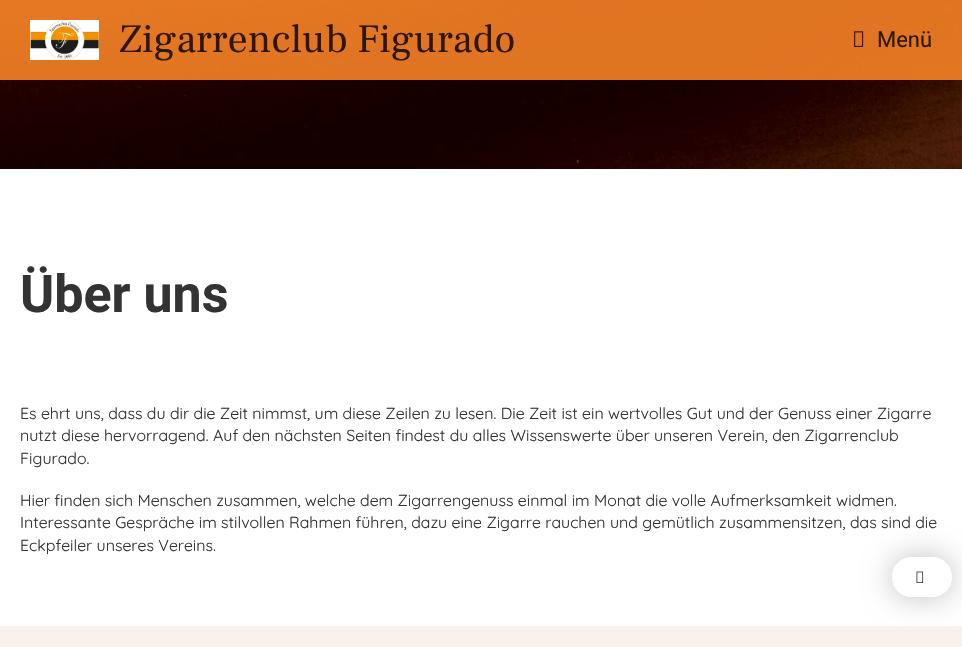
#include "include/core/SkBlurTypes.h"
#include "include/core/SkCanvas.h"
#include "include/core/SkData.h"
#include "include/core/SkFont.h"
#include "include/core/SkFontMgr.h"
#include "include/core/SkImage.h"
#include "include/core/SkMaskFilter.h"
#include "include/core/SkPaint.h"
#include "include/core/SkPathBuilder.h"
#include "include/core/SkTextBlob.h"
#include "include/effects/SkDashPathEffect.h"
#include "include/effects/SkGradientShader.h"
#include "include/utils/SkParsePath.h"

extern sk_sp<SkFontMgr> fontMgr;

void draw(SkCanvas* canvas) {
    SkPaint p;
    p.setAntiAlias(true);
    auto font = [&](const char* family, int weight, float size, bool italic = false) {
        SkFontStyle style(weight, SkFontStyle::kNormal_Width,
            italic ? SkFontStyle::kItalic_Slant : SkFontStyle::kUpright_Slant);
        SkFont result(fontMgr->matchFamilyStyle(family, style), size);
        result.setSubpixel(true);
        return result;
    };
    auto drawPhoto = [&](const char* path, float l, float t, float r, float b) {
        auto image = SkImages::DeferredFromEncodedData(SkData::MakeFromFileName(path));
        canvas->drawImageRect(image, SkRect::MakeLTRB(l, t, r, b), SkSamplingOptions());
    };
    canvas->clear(0xFFFFFFFF);
    drawPhoto("media/3.png", 0, 0, 962, 169);
    p.setColor(0xE0FA8426);
    canvas->drawRect(SkRect::MakeLTRB(0, 0, 962, 80), p);
    drawPhoto("media/1.png", 30, 20, 99, 60);
    auto font1 = font("Frank Ruhl Libre", 400, 40);
    p.setColor(0xFF2D1707);
    canvas->drawString("Zigarrenclub Figurado", 119, 52, font1, p);
    drawPhoto("media/2.png", 854, 31, 864, 47);
    auto font2 = font("Roboto", 400, 22);
    canvas->drawString("Menü", 877, 47, font2, p);
    auto font3 = font("Roboto", 700, 52);
    p.setColor(0xFF333333);
    canvas->drawString("Über uns", 20, 312, font3, p);
    auto font4 = font("Quicksand", 300, 16);
    {
        const struct { const char* s; float x, y; } items[] = {
            {"Es ehrt uns, dass du dir die Zeit nimmst, um diese Zeilen zu lesen. Die Zeit ist ein wertvolles Gut und der Genuss einer Zigarre", 20, 419},
            {"nutzt diese hervorragend. Auf den nächsten Seiten findest du alles Wissenswerte über unseren Verein, den Zigarrenclub", 20, 441},
            {"Figurado.", 20, 464},
            {"Hier finden sich Menschen zusammen, welche dem Zigarrengenuss einmal im Monat die volle Aufmerksamkeit widmen.", 20, 506},
            {"Interessante Gespräche im stilvollen Rahmen führen, dazu eine Zigarre rauchen und gemütlich zusammensitzen, das sind die", 20, 528},
            {"Eckpfeiler unseres Vereins.", 20, 551},
        };
        for (auto [s, x, y] : items) {
            canvas->drawString(s, x, y, font4, p);
        }
    }
    p.setColor(0xFFF9F2EC);
    canvas->drawRect(SkRect::MakeLTRB(0, 626, 962, 647), p);
    canvas->save();
    canvas->clipPath(SkPathBuilder(SkPathFillType::kEvenOdd).moveTo(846, 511).lineTo(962, 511).lineTo(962, 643).lineTo(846, 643).close().moveTo(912, 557).lineTo(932, 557).cubicTo(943, 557, 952, 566, 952, 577).cubicTo(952, 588, 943, 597, 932, 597).lineTo(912, 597).cubicTo(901, 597, 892, 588, 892, 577).cubicTo(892, 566, 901, 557, 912, 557).close().detach(), true);
    p.setColor(0x40000000);
    p.setMaskFilter(SkMaskFilter::MakeBlur(kNormal_SkBlurStyle, 15));
    canvas->drawRoundRect(SkRect::MakeLTRB(892, 557, 952, 597), 20, 20, p);
    p.setMaskFilter(nullptr);
    canvas->restore();
    p.setColor(0xCCFFFFFF);
    canvas->drawRoundRect(SkRect::MakeLTRB(892, 557, 952, 597), 20, 20, p);
    drawPhoto("media/4.png", 916, 571, 924, 583);
}
